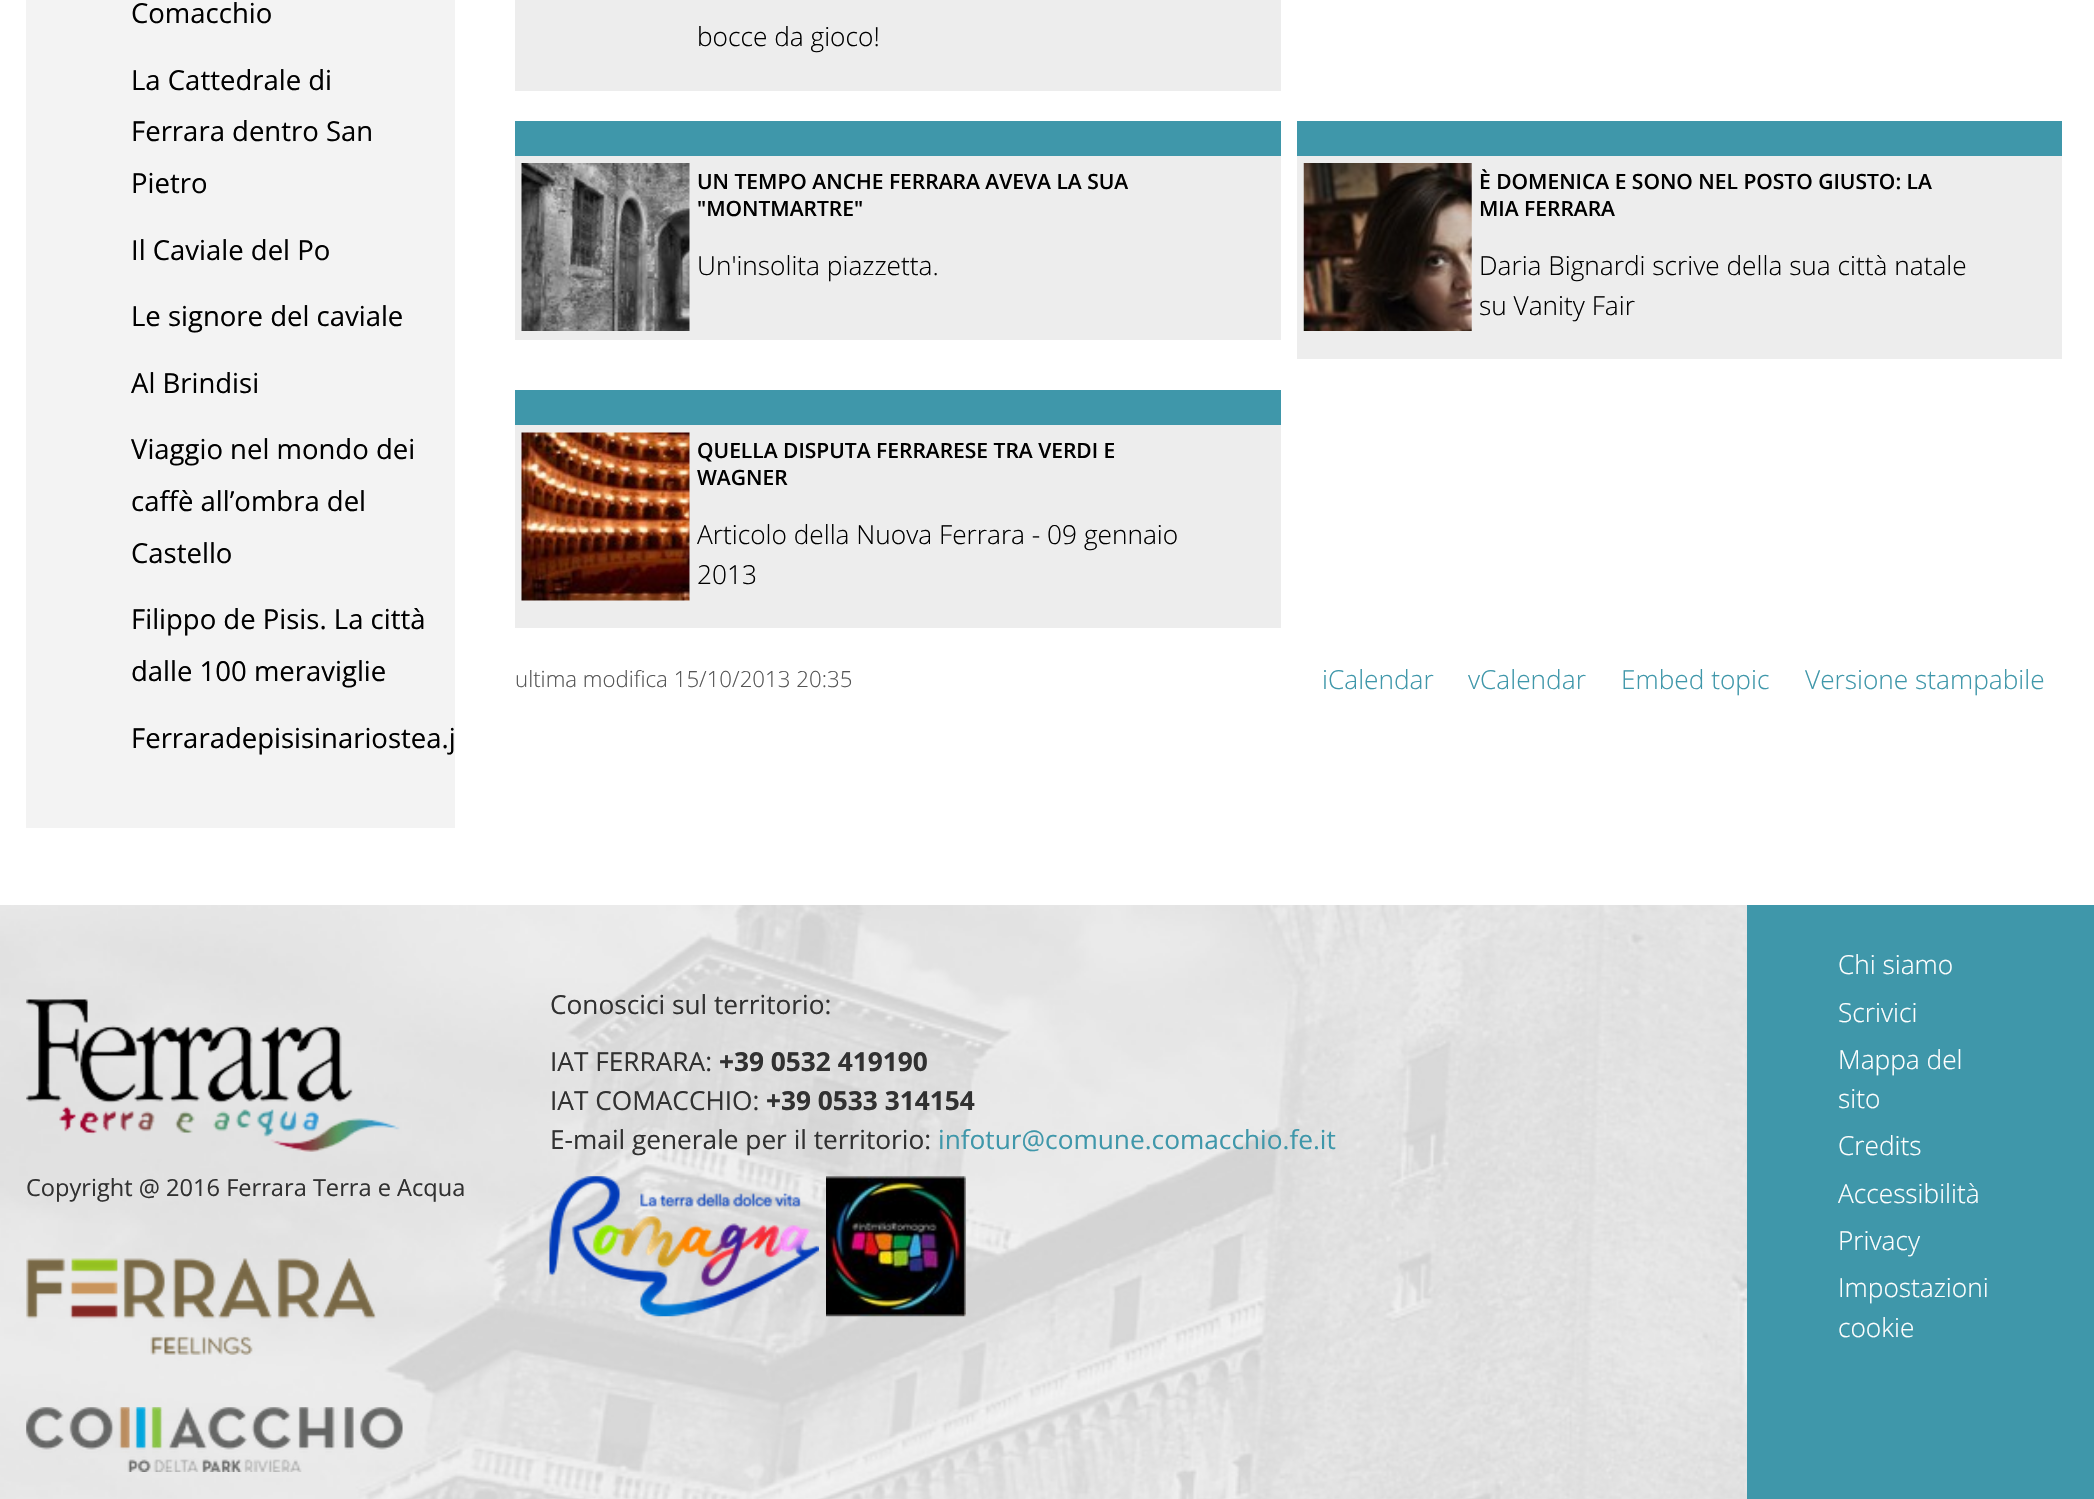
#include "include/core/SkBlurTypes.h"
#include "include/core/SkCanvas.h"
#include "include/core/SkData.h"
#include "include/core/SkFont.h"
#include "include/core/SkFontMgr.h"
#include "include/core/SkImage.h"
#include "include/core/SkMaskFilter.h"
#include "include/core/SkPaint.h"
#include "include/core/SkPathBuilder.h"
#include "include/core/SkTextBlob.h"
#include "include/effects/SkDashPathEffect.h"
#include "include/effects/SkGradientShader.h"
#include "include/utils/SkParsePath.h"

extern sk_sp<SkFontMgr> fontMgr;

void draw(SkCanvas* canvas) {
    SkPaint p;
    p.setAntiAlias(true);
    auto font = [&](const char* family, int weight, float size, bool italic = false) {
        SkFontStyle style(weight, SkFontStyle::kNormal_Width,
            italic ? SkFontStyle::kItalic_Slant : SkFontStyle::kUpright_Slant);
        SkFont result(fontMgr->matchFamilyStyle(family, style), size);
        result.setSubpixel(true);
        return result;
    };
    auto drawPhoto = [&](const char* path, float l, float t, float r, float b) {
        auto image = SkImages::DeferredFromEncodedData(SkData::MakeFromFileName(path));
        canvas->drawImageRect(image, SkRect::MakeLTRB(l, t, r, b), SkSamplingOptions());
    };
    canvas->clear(0xFFFFFFFF);
    p.setColor(0xFFF3F3F3);
    canvas->drawRect(SkRect::MakeLTRB(26, 0, 455, 828), p);
    auto font1 = font("Open Sans", 400, 27.5f);
    p.setColor(0xFF000000);
    {
        const struct { const char* s; float x, y; } items[] = {
            {"Comacchio", 131, 23},
            {"La Cattedrale di", 131, 90},
            {"Ferrara dentro San", 131, 141},
            {"Pietro", 131, 193},
            {"Il Caviale del Po", 131, 260},
            {"Le signore del caviale", 131, 326},
            {"Al Brindisi", 131, 393},
            {"Viaggio nel mondo dei", 131, 459},
            {"caffè all’ombra del", 131, 511},
            {"Castello", 131, 563},
            {"Filippo de Pisis. La città", 131, 629},
            {"dalle 100 meraviglie", 131, 681},
            {"Ferraradepisisinariostea.j", 131, 748},
        };
        for (auto [s, x, y] : items) {
            canvas->drawString(s, x, y, font1, p);
        }
    }
    p.setColor(0xFFEDEDED);
    canvas->drawRect(SkRect::MakeLTRB(515, 0, 1281, 91), p);
    auto font2 = font("Open Sans", 300, 26.25f);
    p.setColor(0xFF000000);
    canvas->drawString("bocce da gioco!", 697, 46, font2, p);
    p.setColor(0xFFEDEDED);
    canvas->drawRect(SkRect::MakeLTRB(515, 156, 1281, 340), p);
    p.setColor(0xFF3F97AA);
    canvas->drawRect(SkRect::MakeLTRB(515, 121, 1281, 156), p);
    drawPhoto("media/1.png", 521, 163, 690, 331);
    auto font3 = font("Open Sans", 600, 21);
    p.setColor(0xFF000000);
    canvas->drawString("UN TEMPO ANCHE FERRARA AVEVA LA SUA", 697, 189, font3, p);
    canvas->drawString("\"MONTMARTRE\"", 697, 216, font3, p);
    canvas->drawString("Un'insolita piazzetta.", 697, 275, font2, p);
    p.setColor(0xFFEDEDED);
    canvas->drawRect(SkRect::MakeLTRB(1297, 156, 2062, 359), p);
    p.setColor(0xFF3F97AA);
    canvas->drawRect(SkRect::MakeLTRB(1297, 121, 2062, 156), p);
    drawPhoto("media/2.png", 1303, 163, 1472, 331);
    p.setColor(0xFF000000);
    canvas->drawString("È DOMENICA E SONO NEL POSTO GIUSTO: LA", 1479, 189, font3, p);
    canvas->drawString("MIA FERRARA", 1479, 216, font3, p);
    canvas->drawString("Daria Bignardi scrive della sua città natale", 1479, 275, font2, p);
    canvas->drawString("su Vanity Fair", 1479, 315, font2, p);
    p.setColor(0xFFEDEDED);
    canvas->drawRect(SkRect::MakeLTRB(515, 425, 1281, 628), p);
    p.setColor(0xFF3F97AA);
    canvas->drawRect(SkRect::MakeLTRB(515, 390, 1281, 425), p);
    drawPhoto("media/3.png", 521, 432, 690, 601);
    p.setColor(0xFF000000);
    canvas->drawString("QUELLA DISPUTA FERRARESE TRA VERDI E", 697, 458, font3, p);
    canvas->drawString("WAGNER", 697, 485, font3, p);
    canvas->drawString("Articolo della Nuova Ferrara - 09 gennaio", 697, 544, font2, p);
    canvas->drawString("2013", 697, 584, font2, p);
    auto font4 = font("Open Sans", 300, 22.25f);
    p.setColor(0xFF555555);
    canvas->drawString("ultima modifica 15/10/2013 20:35", 515, 687, font4, p);
    p.setColor(0xFF3F97AA);
    {
        const struct { const char* s; float x, y; } items[] = {
            {"iCalendar", 1322, 689},
            {"vCalendar", 1468, 689},
            {"Embed topic", 1621, 689},
            {"Versione stampabile", 1805, 689},
        };
        for (auto [s, x, y] : items) {
            canvas->drawString(s, x, y, font2, p);
        }
    }
    drawPhoto("media/4.png", 0, 905, 1747, 1499);
    auto font5 = font("Open Sans", 400, 26.25f);
    p.setColor(0xFF313131);
    canvas->drawString("Conoscici sul territorio:", 550, 1014, font5, p);
    canvas->drawString("IAT FERRARA:", 550, 1071, font5, p);
    auto font6 = font("Open Sans", 700, 26.25f);
    canvas->drawString("+39 0532 419190", 719, 1071, font6, p);
    canvas->drawString("IAT COMACCHIO:", 550, 1110, font5, p);
    canvas->drawString("+39 0533 314154", 766, 1110, font6, p);
    canvas->drawString("E-mail generale per il territorio:", 550, 1149, font5, p);
    p.setColor(0xFF3F97AA);
    canvas->drawString("infotur@comune.comacchio.fe.it", 938, 1149, font5, p);
    drawPhoto("media/5.png", 549, 1176, 819, 1317);
    drawPhoto("media/6.png", 826, 1176, 966, 1317);
    canvas->drawRect(SkRect::MakeLTRB(1747, 905, 2094, 1499), p);
    p.setColor(0xFFFFFFFF);
    {
        const struct { const char* s; float x, y; } items[] = {
            {"Chi siamo", 1838, 974},
            {"Scrivici", 1838, 1022},
            {"Mappa del", 1838, 1069},
            {"sito", 1838, 1108},
            {"Credits", 1838, 1155},
            {"Accessibilità", 1838, 1203},
            {"Privacy", 1838, 1250},
            {"Impostazioni", 1838, 1297},
            {"cookie", 1838, 1337},
        };
        for (auto [s, x, y] : items) {
            canvas->drawString(s, x, y, font2, p);
        }
    }
    drawPhoto("media/7.png", 26, 999, 400, 1152);
    auto font7 = font("Open Sans", 400, 23.6f);
    p.setColor(0xFF313131);
    canvas->drawString("Copyright @ 2016 Ferrara Terra e Acqua", 26, 1196, font7, p);
    drawPhoto("media/8.png", 26, 1258, 376, 1355);
    drawPhoto("media/9.png", 26, 1407, 403, 1472);
}
